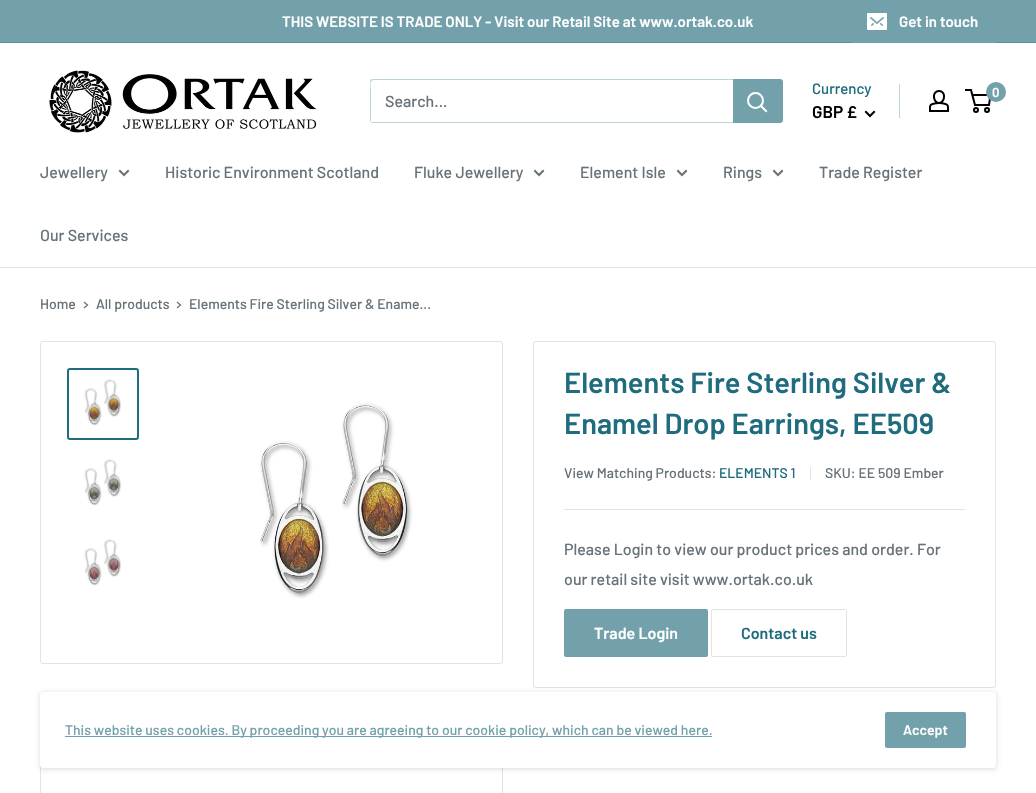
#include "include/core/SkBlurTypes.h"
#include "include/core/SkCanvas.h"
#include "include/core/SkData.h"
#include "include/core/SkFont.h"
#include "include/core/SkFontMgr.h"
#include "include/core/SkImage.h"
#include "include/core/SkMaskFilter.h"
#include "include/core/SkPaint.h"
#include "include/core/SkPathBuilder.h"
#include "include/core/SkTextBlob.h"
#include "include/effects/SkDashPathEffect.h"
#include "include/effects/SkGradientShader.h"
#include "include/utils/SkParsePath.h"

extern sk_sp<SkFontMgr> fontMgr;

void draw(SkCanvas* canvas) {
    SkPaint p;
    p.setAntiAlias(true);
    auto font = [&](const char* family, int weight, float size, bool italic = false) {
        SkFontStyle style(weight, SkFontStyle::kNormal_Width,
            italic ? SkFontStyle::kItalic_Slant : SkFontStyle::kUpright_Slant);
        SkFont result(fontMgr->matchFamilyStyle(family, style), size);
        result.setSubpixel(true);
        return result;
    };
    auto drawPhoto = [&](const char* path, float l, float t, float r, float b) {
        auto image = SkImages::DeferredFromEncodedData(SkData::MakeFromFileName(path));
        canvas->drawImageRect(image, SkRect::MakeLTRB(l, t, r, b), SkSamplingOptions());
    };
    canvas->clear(0xFFFFFFFF);
    p.setColor(0xFF73A1AB);
    canvas->drawRect(SkRect::MakeLTRB(0, 0, 1036, 42), p);
    p.setColor(0xFF5A919D);
    canvas->drawRect(SkRect::MakeLTRB(0, 42, 1036, 43), p);
    auto font1 = font("Barlow", 600, 15);
    p.setColor(0xFFFFFFFF);
    canvas->drawString("THIS WEBSITE IS TRADE ONLY - Visit our Retail Site at www.ortak.co.uk", 282, 27, font1, p);
    p.setColor(0xFF73A1AB);
    canvas->drawRect(SkRect::MakeLTRB(852, 42, 996, 43), p);
    drawPhoto("media/1.png", 867, 13, 887, 30);
    p.setColor(0xFFFFFFFF);
    canvas->drawString("Get in touch", 899, 27, font1, p);
    drawPhoto("media/2.png", 49, 70, 317, 133);
    p.setColor(0xFFBCD3D8);
    canvas->drawPath(SkPathBuilder().moveTo(371, 122).cubicTo(371, 123, 372, 123, 373, 123).lineTo(780, 123).cubicTo(782, 123, 783, 122, 783, 120).lineTo(783, 82).cubicTo(783, 81, 783, 80, 782, 80).lineTo(782, 113).cubicTo(782, 115, 784, 122, 779, 122).close().detach(), p);
    canvas->drawPath(SkPathBuilder().moveTo(374, 80).lineTo(782, 80).cubicTo(782, 79, 781, 79, 780, 79).lineTo(373, 79).cubicTo(371, 79, 370, 80, 370, 82).lineTo(370, 120).cubicTo(370, 121, 370, 122, 371, 122).lineTo(371, 89).cubicTo(371, 87, 369, 80, 374, 80).close().detach(), p);
    auto font2 = font("Barlow", 500, 16);
    p.setColor(0xFF677279);
    canvas->drawString("Search...", 385, 107, font2, p);
    p.setColor(0xFF73A1AB);
    canvas->drawPath(SkPathBuilder().moveTo(733, 79).lineTo(780, 79).cubicTo(781.5f, 79, 783, 80.5f, 783, 82).lineTo(783, 120).cubicTo(783, 121.5f, 781.5f, 123, 780, 123).lineTo(733, 123).close().detach(), p);
    p.setStyle(SkPaint::kStroke_Style);
    p.setStrokeWidth(2);
    p.setStrokeCap(SkPaint::kSquare_Cap);
    p.setColor(0xFFFFFFFF);
    canvas->drawPath(SkPathBuilder().moveTo(766, 111).lineTo(761, 106).detach(), p);
    p.setStrokeCap(SkPaint::kButt_Cap);
    canvas->drawCircle(755.5f, 100.5f, 7.5f, p);
    auto font3 = font("Barlow", 500, 15);
    p.setStyle(SkPaint::kFill_Style);
    p.setColor(0xFF1E6C7D);
    canvas->drawString("Currency", 812, 94, font3, p);
    auto font4 = font("Barlow", 600, 17);
    p.setColor(0xFF000000);
    canvas->drawString("GBP £", 812, 118, font4, p);
    p.setStyle(SkPaint::kStroke_Style);
    p.setStrokeCap(SkPaint::kSquare_Cap);
    canvas->drawPath(SkPathBuilder().moveTo(874, 112).lineTo(870, 116).lineTo(866, 112).detach(), p);
    p.setStyle(SkPaint::kFill_Style);
    p.setColor(0xFFBCD3D8);
    canvas->drawRect(SkRect::MakeLTRB(899, 84, 900, 118), p);
    drawPhoto("media/3.png", 929, 90, 949, 112);
    p.setStyle(SkPaint::kStroke_Style);
    p.setStrokeCap(SkPaint::kButt_Cap);
    p.setColor(0xFF000000);
    canvas->drawCircle(976, 110, 2, p);
    canvas->drawCircle(987, 110, 2, p);
    canvas->drawPath(SkPathBuilder().moveTo(972.5f, 95).lineTo(990.5f, 95).lineTo(989, 105).lineTo(975, 105).lineTo(971, 90).lineTo(965, 90).detach(), p);
    p.setStyle(SkPaint::kFill_Style);
    p.setColor(0xFF73A1AB);
    canvas->drawCircle(996, 92, 10, p);
    auto font5 = font("Barlow", 600, 13);
    p.setColor(0xFFFFFFFF);
    canvas->drawString("0", 992, 97, font5, p);
    p.setColor(0xFFE1E3E4);
    canvas->drawRect(SkRect::MakeLTRB(0, 267, 1036, 268), p);
    p.setColor(0xFF677279);
    canvas->drawString("Jewellery", 40, 178, font2, p);
    p.setStyle(SkPaint::kStroke_Style);
    p.setStrokeCap(SkPaint::kSquare_Cap);
    canvas->drawPath(SkPathBuilder().moveTo(128, 171).lineTo(124, 175).lineTo(120, 171).detach(), p);
    p.setStyle(SkPaint::kFill_Style);
    canvas->drawString("Historic Environment Scotland", 165, 178, font2, p);
    canvas->drawString("Fluke Jewellery", 414, 178, font2, p);
    p.setStyle(SkPaint::kStroke_Style);
    canvas->drawPath(SkPathBuilder().moveTo(543, 171).lineTo(539, 175).lineTo(535, 171).detach(), p);
    p.setStyle(SkPaint::kFill_Style);
    canvas->drawString("Element Isle", 580, 178, font2, p);
    p.setStyle(SkPaint::kStroke_Style);
    canvas->drawPath(SkPathBuilder().moveTo(686, 171).lineTo(682, 175).lineTo(678, 171).detach(), p);
    p.setStyle(SkPaint::kFill_Style);
    canvas->drawString("Rings", 723, 178, font2, p);
    p.setStyle(SkPaint::kStroke_Style);
    canvas->drawPath(SkPathBuilder().moveTo(782, 171).lineTo(778, 175).lineTo(774, 171).detach(), p);
    p.setStyle(SkPaint::kFill_Style);
    canvas->drawString("Trade Register", 819, 178, font2, p);
    canvas->drawString("Our Services", 40, 241, font2, p);
    auto font6 = font("Barlow", 500, 14);
    canvas->drawString("Home", 40, 309, font6, p);
    p.setStyle(SkPaint::kStroke_Style);
    p.setStrokeWidth(1.3f);
    canvas->drawPath(SkPathBuilder().moveTo(84.5f, 302.5f).lineTo(87.5f, 305).lineTo(84.5f, 307.5f).detach(), p);
    p.setStyle(SkPaint::kFill_Style);
    canvas->drawString("All products", 96, 309, font6, p);
    p.setStyle(SkPaint::kStroke_Style);
    canvas->drawPath(SkPathBuilder().moveTo(177.5f, 302.5f).lineTo(180.5f, 305).lineTo(177.5f, 307.5f).detach(), p);
    p.setStyle(SkPaint::kFill_Style);
    canvas->drawString("Elements Fire Sterling Silver & Ename...", 189, 309, font6, p);
    p.setStyle(SkPaint::kStroke_Style);
    p.setStrokeWidth(1);
    p.setStrokeCap(SkPaint::kButt_Cap);
    p.setColor(0xFFE1E3E4);
    canvas->drawRoundRect(SkRect::MakeLTRB(40.5f, 341.5f, 502.5f, 663.5f), 2.5f, 2.5f, p);
    p.setStrokeWidth(2);
    p.setColor(0xFF1E6C7D);
    canvas->drawRoundRect(SkRect::MakeLTRB(68, 369, 138, 439), 2, 2, p);
    drawPhoto("media/4.png", 84, 379, 121, 426);
    drawPhoto("media/5.png", 84, 459, 122, 506);
    drawPhoto("media/6.png", 84, 539, 121, 586);
    drawPhoto("media/7.png", 259, 403, 413, 599);
    p.setStrokeWidth(1);
    p.setColor(0xFFE1E3E4);
    canvas->drawRoundRect(SkRect::MakeLTRB(533.5f, 341.5f, 995.5f, 687.5f), 2.5f, 2.5f, p);
    auto font7 = font("Barlow", 600, 29);
    p.setStyle(SkPaint::kFill_Style);
    p.setColor(0xFF1E6C7D);
    canvas->drawString("Elements Fire Sterling Silver &", 564, 393, font7, p);
    canvas->drawString("Enamel Drop Earrings, EE509", 564, 434, font7, p);
    p.setColor(0xFF677279);
    canvas->drawString("View Matching Products:", 564, 478, font6, p);
    p.setColor(0xFF1E6C7D);
    canvas->drawString("ELEMENTS 1", 719, 478, font6, p);
    p.setColor(0xFFE1E3E4);
    canvas->drawRect(SkRect::MakeLTRB(810, 467, 811, 480), p);
    p.setColor(0xFF677279);
    canvas->drawString("SKU: EE 509 Ember", 825, 478, font6, p);
    p.setColor(0xFFE1E3E4);
    canvas->drawRect(SkRect::MakeLTRB(564, 509, 965, 510), p);
    p.setColor(0xFF677279);
    canvas->drawString("Please Login to view our product prices and order. For", 564, 555, font2, p);
    canvas->drawString("our retail site visit www.ortak.co.uk", 564, 585, font2, p);
    p.setColor(0xFF73A1AB);
    canvas->drawRoundRect(SkRect::MakeLTRB(564, 609, 708, 657), 2, 2, p);
    auto font8 = font("Barlow", 600, 16);
    p.setColor(0xFFFFFFFF);
    canvas->drawString("Trade Login", 594, 639, font8, p);
    p.setStyle(SkPaint::kStroke_Style);
    p.setColor(0xFFE1E3E4);
    canvas->drawRoundRect(SkRect::MakeLTRB(711.5f, 609.5f, 846.5f, 656.5f), 1.5f, 1.5f, p);
    p.setStyle(SkPaint::kFill_Style);
    p.setColor(0xFF1E6C7D);
    canvas->drawString("Contact us", 741, 639, font8, p);
    p.setStyle(SkPaint::kStroke_Style);
    p.setColor(0xFFE1E3E4);
    canvas->drawRoundRect(SkRect::MakeLTRB(40.5f, 694.5f, 502.5f, 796.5f), 2.5f, 2.5f, p);
    p.setStyle(SkPaint::kFill_Style);
    p.setColor(0x1A000000);
    p.setMaskFilter(SkMaskFilter::MakeBlur(kNormal_SkBlurStyle, 2));
    canvas->drawRoundRect(SkRect::MakeLTRB(39, 692, 997, 770), 4, 4, p);
    p.setMaskFilter(nullptr);
    p.setColor(0xFFFFFFFF);
    canvas->drawRoundRect(SkRect::MakeLTRB(40, 692, 996, 768), 3, 3, p);
    p.setColor(0xFF73A1AB);
    canvas->drawRect(SkRect::MakeLTRB(65, 736, 712, 737), p);
    canvas->drawString("This website uses cookies. By proceeding you are agreeing to our cookie policy, which can be viewed here.", 65, 735, font6, p);
    canvas->drawRoundRect(SkRect::MakeLTRB(885, 712, 966, 748), 2, 2, p);
    auto font9 = font("Barlow", 600, 14);
    p.setColor(0xFFFFFFFF);
    canvas->drawString("Accept", 903, 735, font9, p);
}
